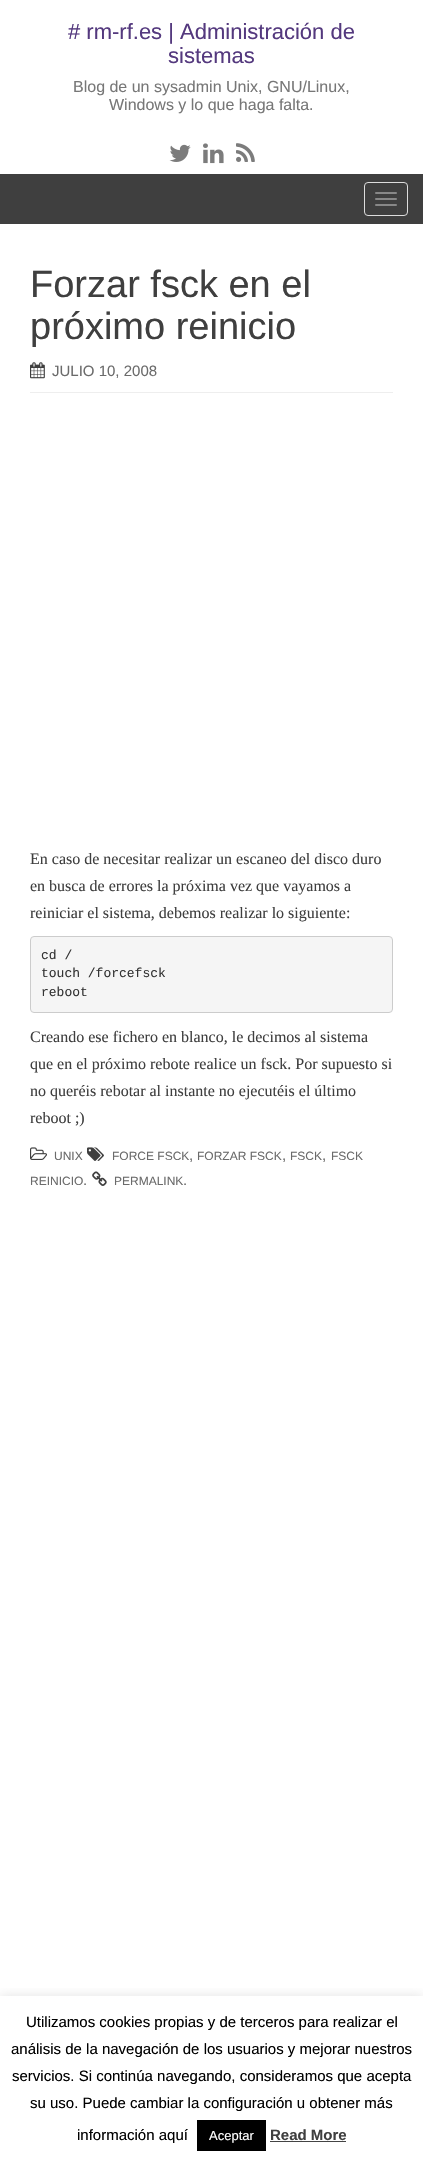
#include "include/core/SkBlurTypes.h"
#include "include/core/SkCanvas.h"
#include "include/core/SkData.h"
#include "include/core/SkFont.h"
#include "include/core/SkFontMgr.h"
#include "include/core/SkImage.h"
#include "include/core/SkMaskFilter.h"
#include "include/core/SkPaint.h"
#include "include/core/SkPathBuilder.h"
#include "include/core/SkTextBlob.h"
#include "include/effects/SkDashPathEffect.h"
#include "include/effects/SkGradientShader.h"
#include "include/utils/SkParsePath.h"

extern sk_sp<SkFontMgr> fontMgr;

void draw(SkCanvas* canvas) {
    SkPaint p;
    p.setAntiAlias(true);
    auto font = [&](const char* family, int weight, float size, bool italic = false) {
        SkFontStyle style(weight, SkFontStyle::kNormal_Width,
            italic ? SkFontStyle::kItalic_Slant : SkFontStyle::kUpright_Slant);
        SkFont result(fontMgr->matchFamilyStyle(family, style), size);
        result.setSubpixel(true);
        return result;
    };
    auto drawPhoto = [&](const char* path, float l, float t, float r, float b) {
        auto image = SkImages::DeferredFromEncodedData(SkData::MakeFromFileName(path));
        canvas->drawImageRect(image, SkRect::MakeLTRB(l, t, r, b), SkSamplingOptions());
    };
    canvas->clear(0xFFFFFFFF);
    auto font1 = font("Liberation Sans", 400, 22);
    p.setColor(0xFF54397E);
    canvas->drawString("# rm-rf.es | Administración de", 68, 39, font1, p);
    canvas->drawString("sistemas", 168, 63, font1, p);
    auto font2 = font("Liberation Sans", 400, 16);
    p.setColor(0xFF777777);
    canvas->drawString("Blog de un sysadmin Unix, GNU/Linux,", 73, 92, font2, p);
    canvas->drawString("Windows y lo que haga falta.", 109, 110, font2, p);
    drawPhoto("media/1.png", 169, 144, 191, 162);
    drawPhoto("media/2.png", 203, 143, 224, 164);
    drawPhoto("media/3.png", 236, 143, 255, 162);
    p.setColor(0xFF3F3F3F);
    canvas->drawRect(SkRect::MakeLTRB(0, 174, 423, 224), p);
    p.setStyle(SkPaint::kStroke_Style);
    p.setStrokeWidth(1);
    p.setColor(0xFFDDDDDD);
    canvas->drawRoundRect(SkRect::MakeLTRB(364.5f, 182.5f, 407.5f, 215.5f), 3.5f, 3.5f, p);
    p.setStyle(SkPaint::kFill_Style);
    p.setColor(0xFF888888);
    canvas->drawRoundRect(SkRect::MakeLTRB(375, 192, 397, 194), 1, 1, p);
    canvas->drawRoundRect(SkRect::MakeLTRB(375, 198, 397, 200), 1, 1, p);
    canvas->drawRoundRect(SkRect::MakeLTRB(375, 204, 397, 206), 1, 1, p);
    p.setColor(0xFFEEEEEE);
    canvas->drawRect(SkRect::MakeLTRB(30, 392, 393, 393), p);
    auto font3 = font("Liberation Sans", 400, 38);
    p.setColor(0xFF3F3F3F);
    canvas->drawString("Forzar fsck en el", 30, 297, font3, p);
    canvas->drawString("próximo reinicio", 30, 339, font3, p);
    drawPhoto("media/4.png", 30, 362, 45, 379);
    auto font4 = font("Liberation Sans", 400, 15);
    p.setColor(0xFF6B6B6B);
    canvas->drawString("JULIO 10, 2008", 52, 376, font4, p);
    auto font5 = font("Liberation Serif", 400, 16);
    p.setColor(0xFF3F3F3F);
    {
        const struct { const char* s; float x, y; } items[] = {
            {"En caso de necesitar realizar un escaneo del disco duro", 30, 864},
            {"en busca de errores la próxima vez que vayamos a", 30, 891},
            {"reiniciar el sistema, debemos realizar lo siguiente:", 30, 918},
        };
        for (auto [s, x, y] : items) {
            canvas->drawString(s, x, y, font5, p);
        }
    }
    p.setColor(0xFFF5F5F5);
    canvas->drawRoundRect(SkRect::MakeLTRB(30.5f, 936.5f, 392.5f, 1012.5f), 3.5f, 3.5f, p);
    p.setStyle(SkPaint::kStroke_Style);
    p.setColor(0xFFCCCCCC);
    canvas->drawRoundRect(SkRect::MakeLTRB(30.5f, 936.5f, 392.5f, 1012.5f), 3.5f, 3.5f, p);
    auto font6 = font("Liberation Mono", 400, 13);
    p.setStyle(SkPaint::kFill_Style);
    p.setColor(0xFF333333);
    {
        const struct { const char* s; float x, y; } items[] = {
            {"cd /", 41, 959},
            {"touch /forcefsck", 41, 977},
            {"reboot", 41, 996},
        };
        for (auto [s, x, y] : items) {
            canvas->drawString(s, x, y, font6, p);
        }
    }
    p.setColor(0xFF3F3F3F);
    {
        const struct { const char* s; float x, y; } items[] = {
            {"Creando ese fichero en blanco, le decimos al sistema", 30, 1042},
            {"que en el próximo rebote realice un fsck. Por supuesto si", 30, 1069},
            {"no queréis rebotar al instante no ejecutéis el último", 30, 1096},
            {"reboot ;)", 30, 1123},
        };
        for (auto [s, x, y] : items) {
            canvas->drawString(s, x, y, font5, p);
        }
    }
    drawPhoto("media/5.png", 30, 1147, 47, 1160);
    auto font7 = font("Liberation Sans", 400, 12);
    p.setColor(0xFF6B6B6B);
    canvas->drawString("UNIX", 54, 1160, font7, p);
    drawPhoto("media/6.png", 87, 1147, 104, 1161);
    canvas->drawString("FORCE FSCK", 112, 1160, font7, p);
    canvas->drawString(",", 189, 1160, font4, p);
    canvas->drawString("FORZAR FSCK", 197, 1160, font7, p);
    canvas->drawString(",", 282, 1160, font4, p);
    canvas->drawString("FSCK", 290, 1160, font7, p);
    canvas->drawString(",", 322, 1160, font4, p);
    canvas->drawString("FSCK", 331, 1160, font7, p);
    canvas->drawString("REINICIO", 30, 1185, font7, p);
    canvas->drawString(".", 83, 1185, font4, p);
    drawPhoto("media/7.png", 92, 1171, 107, 1186);
    canvas->drawString("PERMALINK", 114, 1185, font7, p);
    canvas->drawString(".", 183, 1185, font4, p);
    canvas->save();
    canvas->clipRect(SkRect::MakeLTRB(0, 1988, 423, 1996));
    p.setColor(0x4DACABAB);
    p.setMaskFilter(SkMaskFilter::MakeBlur(kNormal_SkBlurStyle, 5));
    canvas->drawRect(SkRect::MakeLTRB(0, 1995, 423, 2162), p);
    p.setMaskFilter(nullptr);
    canvas->restore();
    p.setColor(0xFF000000);
    {
        const struct { const char* s; float x, y; } items[] = {
            {"Utilizamos cookies propias y de terceros para realizar el", 26, 2027},
            {"análisis de la navegación de los usuarios y mejorar nuestros", 11, 2054},
            {"servicios. Si continúa navegando, consideramos que acepta", 12, 2081},
            {"su uso. Puede cambiar la configuración u obtener más", 30, 2108},
            {"información aquí", 77, 2140},
        };
        for (auto [s, x, y] : items) {
            canvas->drawString(s, x, y, font4, p);
        }
    }
    canvas->drawRect(SkRect::MakeLTRB(197, 2120, 266, 2151), p);
    auto font8 = font("Liberation Sans", 400, 13);
    p.setColor(0xFFFFFFFF);
    canvas->drawString("Aceptar", 209, 2140, font8, p);
    auto font9 = font("Liberation Sans", 700, 15);
    p.setColor(0xFF3F3F3F);
    canvas->drawString("Read More", 270, 2140, font9, p);
    p.setColor(0xFF444444);
    canvas->drawRect(SkRect::MakeLTRB(270, 2141, 346, 2142), p);
}
